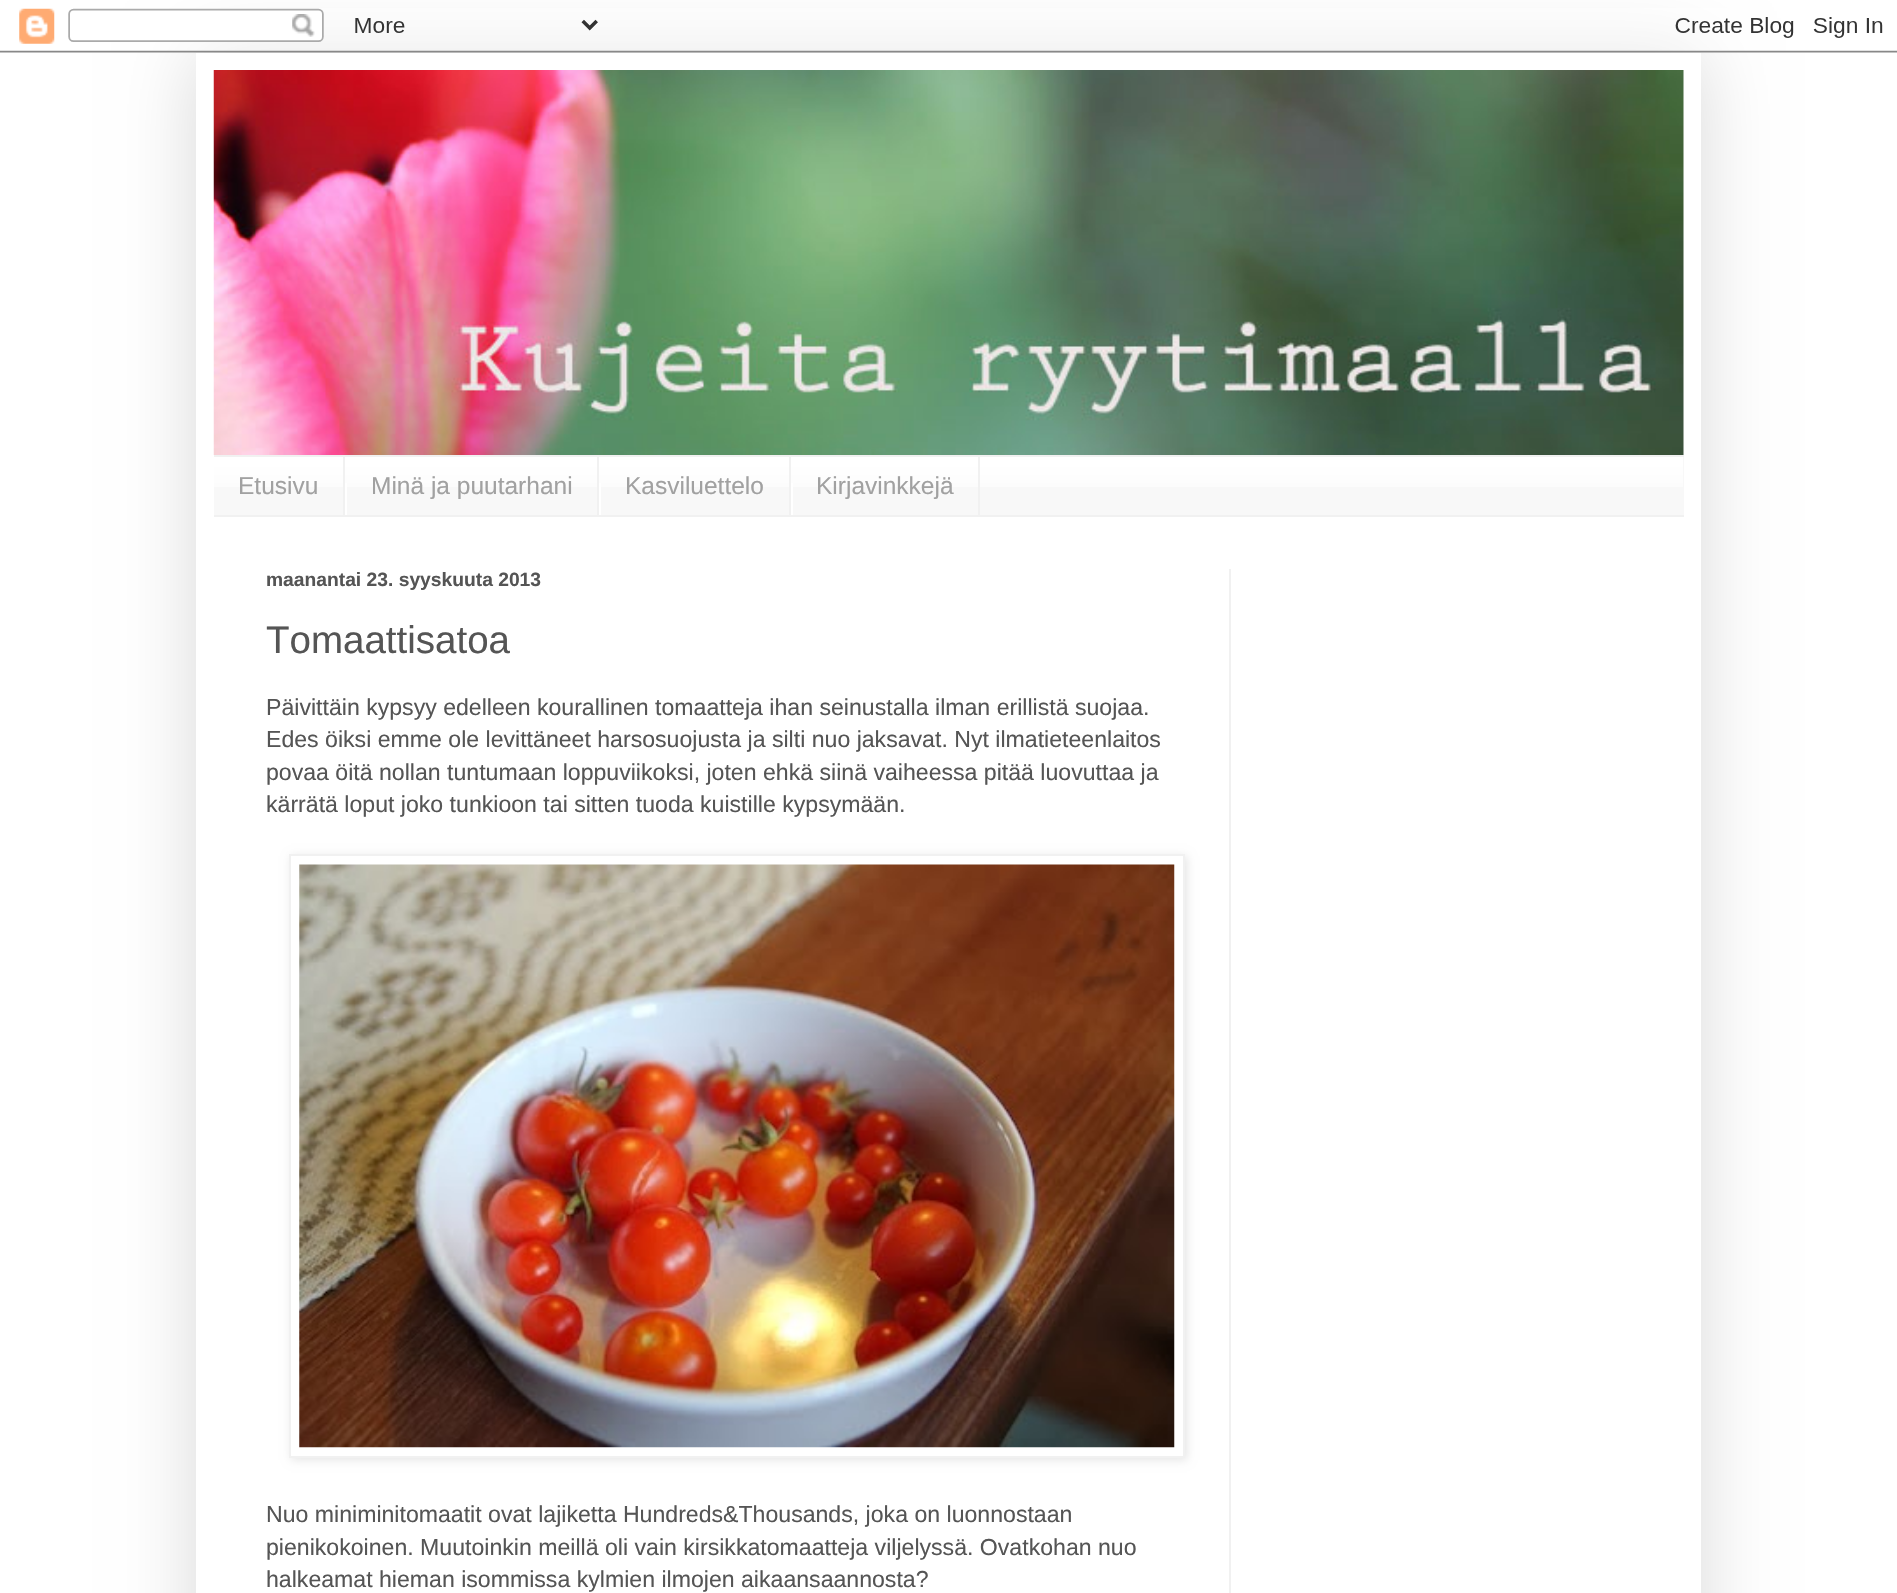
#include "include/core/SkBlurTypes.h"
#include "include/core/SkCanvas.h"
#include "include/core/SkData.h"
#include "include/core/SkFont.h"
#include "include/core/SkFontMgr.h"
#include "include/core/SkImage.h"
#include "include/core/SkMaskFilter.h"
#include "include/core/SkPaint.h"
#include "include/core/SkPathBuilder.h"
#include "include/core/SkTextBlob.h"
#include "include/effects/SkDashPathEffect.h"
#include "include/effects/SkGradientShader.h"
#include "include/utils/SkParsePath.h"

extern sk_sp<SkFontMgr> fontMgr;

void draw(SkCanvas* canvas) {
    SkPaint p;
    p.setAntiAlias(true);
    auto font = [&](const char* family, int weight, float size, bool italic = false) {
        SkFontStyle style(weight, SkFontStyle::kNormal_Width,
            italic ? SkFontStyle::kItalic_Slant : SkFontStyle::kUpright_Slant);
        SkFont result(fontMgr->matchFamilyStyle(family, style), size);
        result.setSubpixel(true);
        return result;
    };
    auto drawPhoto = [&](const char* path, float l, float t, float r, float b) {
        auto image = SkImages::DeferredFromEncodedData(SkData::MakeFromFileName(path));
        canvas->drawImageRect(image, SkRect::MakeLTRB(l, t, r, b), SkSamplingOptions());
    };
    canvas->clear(0xFFFFFFFF);
    canvas->save();
    canvas->clipPath(SkPathBuilder(SkPathFillType::kEvenOdd).moveTo(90, 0).lineTo(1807, 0).lineTo(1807, 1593).lineTo(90, 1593).close().moveTo(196, 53).lineTo(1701, 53).lineTo(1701, 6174).lineTo(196, 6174).close().detach(), true);
    p.setColor(0x26000000);
    p.setMaskFilter(SkMaskFilter::MakeBlur(kNormal_SkBlurStyle, 35));
    canvas->drawRect(SkRect::MakeLTRB(196, 53, 1701, 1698), p);
    p.setMaskFilter(nullptr);
    canvas->restore();
    drawPhoto("media/1.png", 0, 8, 1897, 53);
    drawPhoto("media/2.png", 213, 70, 1684, 455);
    p.setColor(0xFFF8F8F8);
    canvas->drawRect(SkRect::MakeLTRB(214, 457, 1684, 515), p);
    drawPhoto("media/3.png", 214, 457, 1683, 487);
    {
        const struct { float l, t, r, b; SkColor color; } items[] = {
            {214, 455, 1684, 457, 0xFFF1F1F1},
            {214, 515, 1684, 517, 0xFFF1F1F1},
            {343, 457, 345, 515, 0xFFF1F1F1},
        };
        for (auto [l, t, r, b, color] : items) {
            p.setColor(color);
            canvas->drawRect(SkRect::MakeLTRB(l, t, r, b), p);
        }
    }
    auto font1 = font("Liberation Sans", 400, 24.5f);
    p.setColor(0xFFA1A1A1);
    canvas->drawString("Etusivu", 238, 494, font1, p);
    p.setColor(0xFFF1F1F1);
    canvas->drawRect(SkRect::MakeLTRB(597, 457, 599, 515), p);
    p.setColor(0xFFFFFFFF);
    canvas->drawRect(SkRect::MakeLTRB(345, 483, 347, 515), p);
    p.setColor(0xFFA1A1A1);
    canvas->drawString("Minä ja puutarhani", 371, 494, font1, p);
    p.setColor(0xFFF1F1F1);
    canvas->drawRect(SkRect::MakeLTRB(789, 457, 791, 515), p);
    p.setColor(0xFFFFFFFF);
    canvas->drawRect(SkRect::MakeLTRB(599, 483, 601, 515), p);
    p.setColor(0xFFA1A1A1);
    canvas->drawString("Kasviluettelo", 625, 494, font1, p);
    p.setColor(0xFFF1F1F1);
    canvas->drawRect(SkRect::MakeLTRB(978, 457, 980, 515), p);
    p.setColor(0xFFFFFFFF);
    canvas->drawRect(SkRect::MakeLTRB(791, 483, 793, 515), p);
    p.setColor(0xFFA1A1A1);
    canvas->drawString("Kirjavinkkejä", 816, 494, font1, p);
    auto font2 = font("Liberation Sans", 700, 19.25f);
    p.setColor(0xFF555555);
    canvas->drawString("maanantai 23. syyskuuta 2013", 266, 586, font2, p);
    auto font3 = font("Liberation Sans", 400, 38.5f);
    canvas->drawString("Tomaattisatoa", 266, 653, font3, p);
    auto font4 = font("Liberation Sans", 400, 23.1f);
    {
        const struct { const char* s; float x, y; } items[] = {
            {"Päivittäin kypsyy edelleen kourallinen tomaatteja ihan seinustalla ilman erillistä suojaa.", 266, 715},
            {"Edes öiksi emme ole levittäneet harsosuojusta ja silti nuo jaksavat. Nyt ilmatieteenlaitos", 266, 747},
            {"povaa öitä nollan tuntumaan loppuviikoksi, joten ehkä siinä vaiheessa pitää luovuttaa ja", 266, 780},
            {"kärrätä loput joko tunkioon tai sitten tuoda kuistille kypsymään.", 266, 812},
        };
        for (auto [s, x, y] : items) {
            canvas->drawString(s, x, y, font4, p);
        }
    }
    p.setColor(0x1A000000);
    p.setMaskFilter(SkMaskFilter::MakeBlur(kNormal_SkBlurStyle, 4.5f));
    canvas->drawRect(SkRect::MakeLTRB(291, 856, 1187, 1460), p);
    p.setMaskFilter(nullptr);
    p.setColor(0xFFFFFFFF);
    canvas->drawRect(SkRect::MakeLTRB(290, 855, 1184, 1457), p);
    p.setStyle(SkPaint::kStroke_Style);
    p.setStrokeWidth(2);
    p.setColor(0xFFF1F1F1);
    canvas->drawRect(SkRect::MakeLTRB(290, 855, 1184, 1457), p);
    drawPhoto("media/4.png", 299, 864, 1175, 1448);
    p.setStyle(SkPaint::kFill_Style);
    p.setColor(0xFF555555);
    {
        const struct { const char* s; float x, y; } items[] = {
            {"Nuo miniminitomaatit ovat lajiketta Hundreds&Thousands, joka on luonnostaan", 266, 1522},
            {"pienikokoinen. Muutoinkin meillä oli vain kirsikkatomaatteja viljelyssä. Ovatkohan nuo", 266, 1555},
            {"halkeamat hieman isommissa kylmien ilmojen aikaansaannosta?", 266, 1587},
        };
        for (auto [s, x, y] : items) {
            canvas->drawString(s, x, y, font4, p);
        }
    }
    p.setColor(0xFFF1F1F1);
    canvas->drawRect(SkRect::MakeLTRB(1229, 569, 1231, 1593), p);
}
